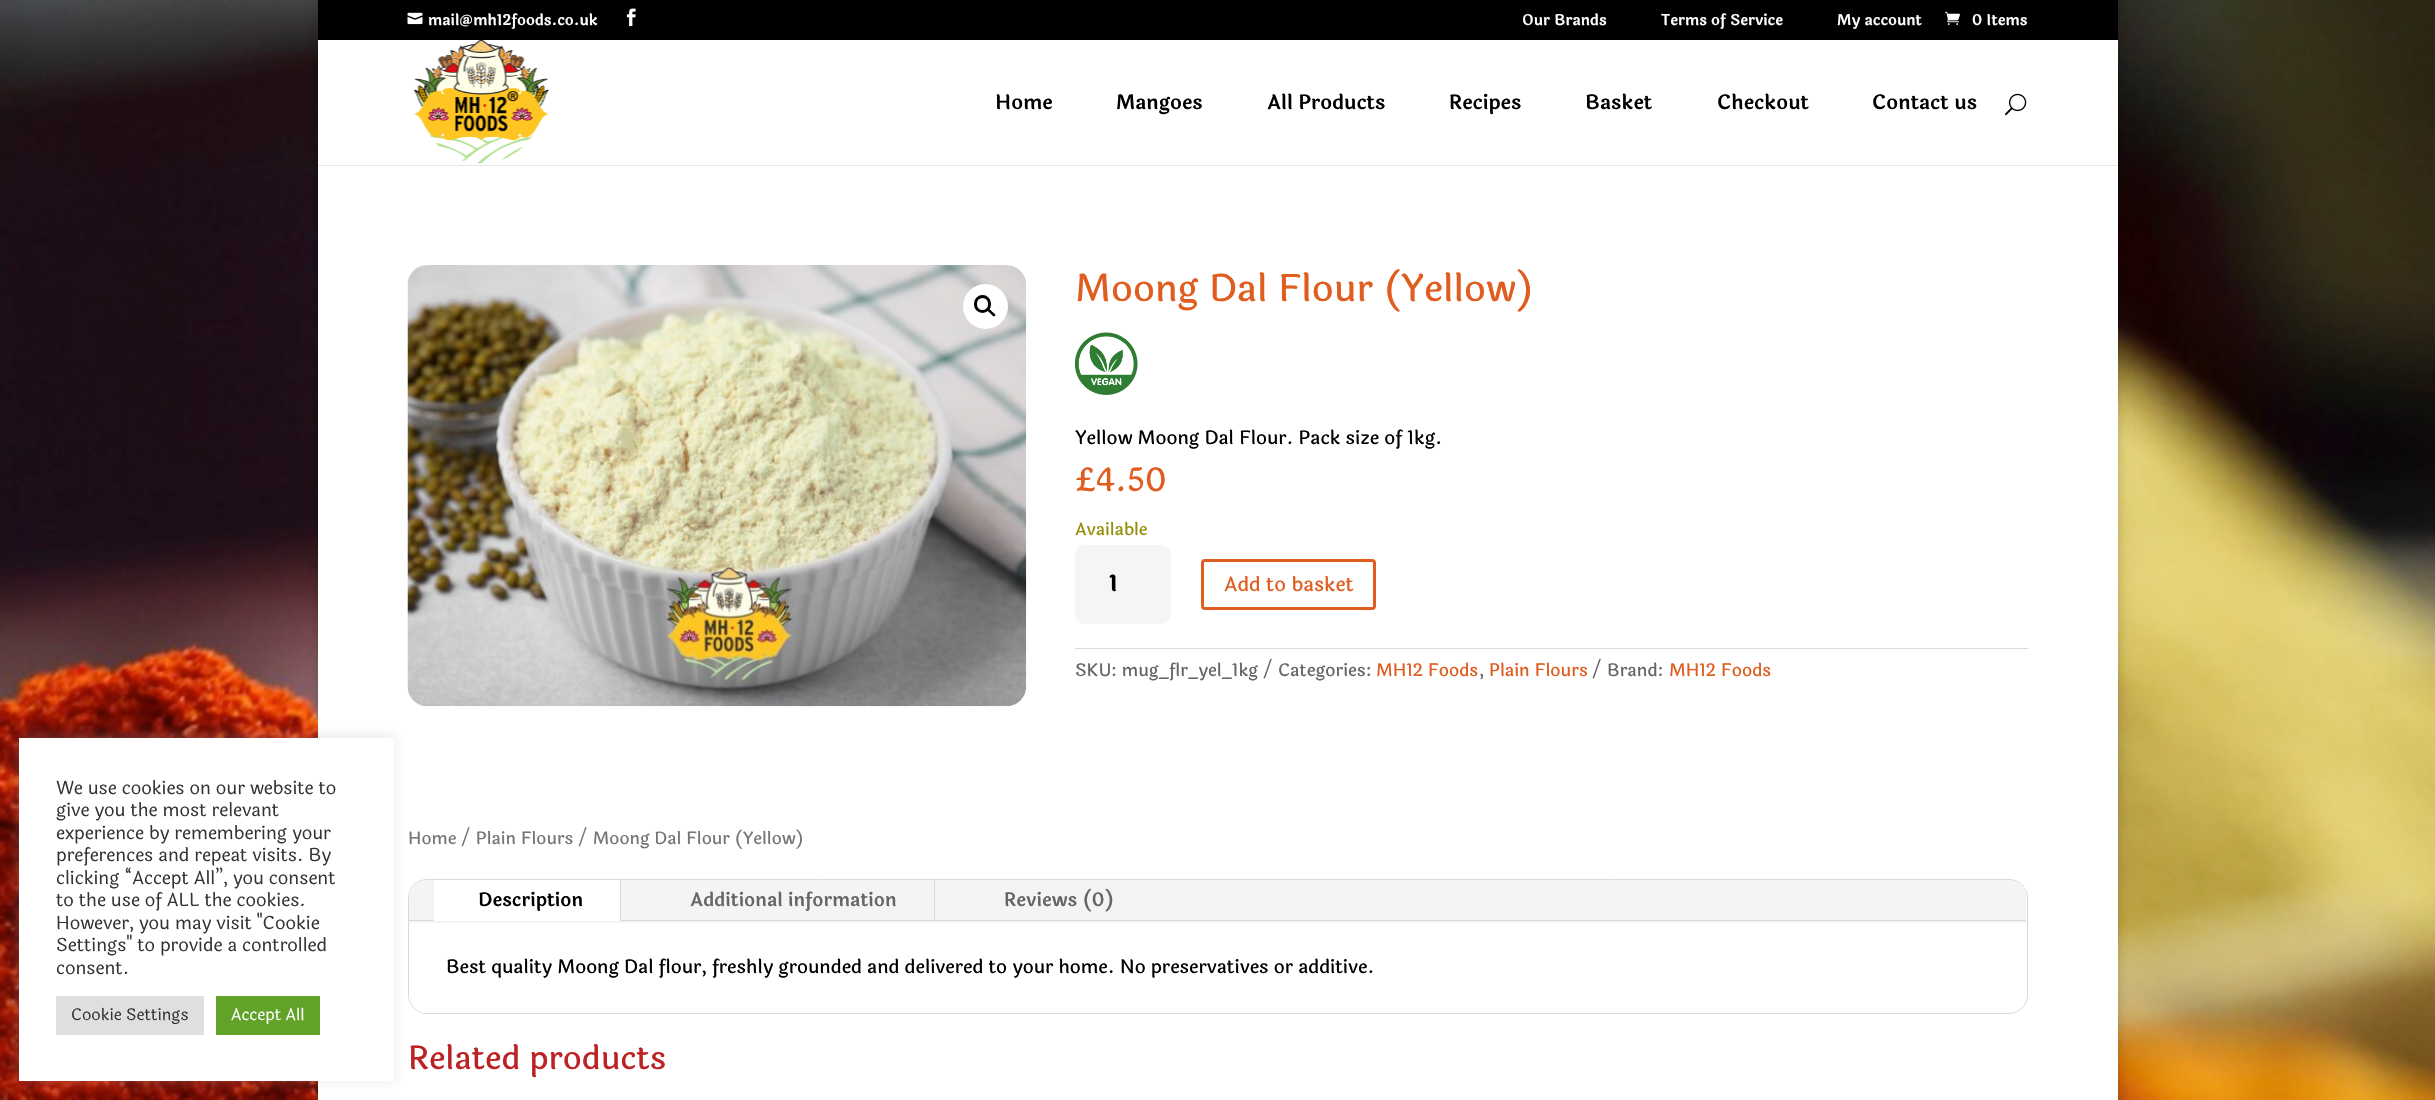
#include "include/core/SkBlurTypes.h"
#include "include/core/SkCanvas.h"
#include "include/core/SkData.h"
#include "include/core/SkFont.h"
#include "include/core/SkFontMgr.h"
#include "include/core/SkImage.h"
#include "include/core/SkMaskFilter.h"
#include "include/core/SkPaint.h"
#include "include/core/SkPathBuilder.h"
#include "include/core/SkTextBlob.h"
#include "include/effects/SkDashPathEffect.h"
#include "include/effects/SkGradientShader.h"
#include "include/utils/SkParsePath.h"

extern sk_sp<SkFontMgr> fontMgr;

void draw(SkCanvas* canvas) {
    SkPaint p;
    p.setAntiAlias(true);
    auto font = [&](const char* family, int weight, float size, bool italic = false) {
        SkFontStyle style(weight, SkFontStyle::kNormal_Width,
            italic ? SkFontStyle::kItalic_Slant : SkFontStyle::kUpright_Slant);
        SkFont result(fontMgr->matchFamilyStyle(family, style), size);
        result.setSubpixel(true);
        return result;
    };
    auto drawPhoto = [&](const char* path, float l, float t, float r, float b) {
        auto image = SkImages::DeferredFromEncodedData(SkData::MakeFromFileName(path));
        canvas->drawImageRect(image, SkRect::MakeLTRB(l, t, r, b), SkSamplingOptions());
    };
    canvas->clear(0xFFFFFFFF);
    drawPhoto("media/1.png", 0, 0, 2435, 1100);
    p.setColor(0x33000000);
    p.setMaskFilter(SkMaskFilter::MakeBlur(kNormal_SkBlurStyle, 6));
    canvas->drawRect(SkRect::MakeLTRB(318, 0, 2118, 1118), p);
    p.setMaskFilter(nullptr);
    p.setColor(0xFFFFFFFF);
    canvas->drawRect(SkRect::MakeLTRB(318, 166, 2118, 1100), p);
    p.setStyle(SkPaint::kStroke_Style);
    p.setStrokeWidth(1);
    p.setColor(0xFFD9D9D9);
    canvas->drawRoundRect(SkRect::MakeLTRB(408.5f, 879.5f, 2027.5f, 1013.5f), 18.5f, 18.5f, p);
    p.setStyle(SkPaint::kFill_Style);
    p.setColor(0xFFF4F4F4);
    canvas->drawPath(SkPathBuilder().moveTo(427, 880).lineTo(2008, 880).cubicTo(2018, 880, 2026, 888, 2026, 898).lineTo(2026, 923).lineTo(409, 923).lineTo(409, 898).cubicTo(409, 888, 417, 880, 427, 880).close().detach(), p);
    p.setColor(0xFFD9D9D9);
    canvas->drawRect(SkRect::MakeLTRB(409, 920, 2026, 921), p);
    p.setColor(0xFFFFFFFF);
    canvas->drawPath(SkPathBuilder().moveTo(409, 923).lineTo(2026, 923).lineTo(2026, 995).cubicTo(2026, 1005, 2018, 1013, 2008, 1013).lineTo(427, 1013).cubicTo(417, 1013, 409, 1005, 409, 995).close().detach(), p);
    p.setColor(0x4DACABAB);
    p.setMaskFilter(SkMaskFilter::MakeBlur(kNormal_SkBlurStyle, 6));
    canvas->drawRect(SkRect::MakeLTRB(19, 736, 394, 1080), p);
    p.setMaskFilter(nullptr);
    p.setColor(0xFFFFFFFF);
    canvas->drawRect(SkRect::MakeLTRB(19, 738, 394, 1081), p);
    auto font1 = font("Laila", 400, 18.3f);
    p.setColor(0xFF333333);
    {
        const struct { const char* s; float x, y; } items[] = {
            {"We use cookies on our website to", 56, 794},
            {"give you the most relevant", 56, 816},
            {"experience by remembering your", 56, 839},
            {"preferences and repeat visits. By", 56, 861},
            {"clicking “Accept All”, you consent", 56, 884},
            {"to the use of ALL the cookies.", 56, 906},
            {"However, you may visit \"Cookie", 56, 929},
            {"Settings\" to provide a controlled", 56, 951},
            {"consent.", 56, 974},
        };
        for (auto [s, x, y] : items) {
            canvas->drawString(s, x, y, font1, p);
        }
    }
    p.setColor(0xFFDEDFE0);
    canvas->drawRect(SkRect::MakeLTRB(56, 996, 204, 1035), p);
    auto font2 = font("Laila", 400, 16.25f);
    p.setColor(0xFF333333);
    canvas->drawString("Cookie Settings", 71, 1020, font2, p);
    p.setColor(0xFF61A229);
    canvas->drawRect(SkRect::MakeLTRB(216, 996, 320, 1035), p);
    p.setColor(0xFFFFFFFF);
    canvas->drawString("Accept All", 231, 1020, font2, p);
    p.setColor(0xFF000000);
    canvas->drawRect(SkRect::MakeLTRB(318, 0, 2118, 40), p);
    drawPhoto("media/2.png", 407, 12, 423, 25);
    auto font3 = font("Laila", 600, 15);
    p.setColor(0xFFFFFFFF);
    canvas->drawString("mail@mh12foods.co.uk", 428, 25, font3, p);
    drawPhoto("media/3.png", 626, 8, 636, 27);
    {
        const struct { const char* s; float x, y; } items[] = {
            {"Our Brands", 1522, 25},
            {"Terms of Service", 1661, 25},
            {"My account", 1837, 25},
        };
        for (auto [s, x, y] : items) {
            canvas->drawString(s, x, y, font3, p);
        }
    }
    drawPhoto("media/4.png", 1945, 11, 1960, 25);
    canvas->drawString("0 Items", 1972, 25, font3, p);
    p.setColor(0xFFE6E6E6);
    canvas->drawPath(SkPathBuilder().moveTo(318, 165).lineTo(318, 166).lineTo(2118, 166).lineTo(2118, 41).lineTo(2118, 165).close().detach(), p);
    p.setColor(0xFFFFFFFF);
    canvas->drawRect(SkRect::MakeLTRB(318, 40, 2118, 165), p);
    drawPhoto("media/5.png", 413, 40, 549, 164);
    auto font4 = font("Laila", 600, 20);
    p.setColor(0xFF000000);
    {
        const struct { const char* s; float x, y; } items[] = {
            {"Home", 995, 109},
            {"Mangoes", 1116, 109},
            {"All Products", 1267, 109},
            {"Recipes", 1449, 109},
            {"Basket", 1585, 109},
            {"Checkout", 1717, 109},
            {"Contact us", 1872, 109},
        };
        for (auto [s, x, y] : items) {
            canvas->drawString(s, x, y, font4, p);
        }
    }
    drawPhoto("media/6.png", 2005, 93, 2027, 116);
    drawPhoto("media/7.png", 407, 265, 1027, 707);
    p.setColor(0xFFFFFFFF);
    canvas->drawCircle(985.5f, 306.5f, 22.5f, p);
    p.setStyle(SkPaint::kStroke_Style);
    p.setStrokeWidth(3);
    p.setColor(0xFF000000);
    canvas->drawRoundRect(SkRect::MakeLTRB(975.5f, 296.5f, 989.5f, 311.5f), 7, 7, p);
    p.setStyle(SkPaint::kFill_Style);
    canvas->drawPath(SkPathBuilder().moveTo(988, 309).cubicTo(989, 307.5f, 991.5f, 311, 992, 311.5f).cubicTo(993, 312.5f, 996.5f, 314.5f, 995, 316).cubicTo(993.5f, 317.5f, 991, 314, 990.5f, 313.5f).cubicTo(989.5f, 312.5f, 986.5f, 310.5f, 988, 309).close().detach(), p);
    auto font5 = font("Laila", 500, 37.5f);
    p.setColor(0xFFE05C1F);
    canvas->drawString("Moong Dal Flour (Yellow)", 1075, 301, font5, p);
    drawPhoto("media/8.png", 1075, 332, 1138, 395);
    auto font6 = font("Laila", 500, 18.75f);
    p.setColor(0xFF000000);
    canvas->drawString("Yellow Moong Dal Flour. Pack size of 1kg.", 1075, 444, font6, p);
    auto font7 = font("Laila", 500, 32.5f);
    p.setColor(0xFFE05C1F);
    canvas->drawString("£4.50", 1075, 491, font7, p);
    auto font8 = font("Laila", 500, 17.25f);
    p.setColor(0xFF958E09);
    canvas->drawString("Available", 1075, 535, font8, p);
    p.setColor(0xFFF5F5F5);
    canvas->drawRoundRect(SkRect::MakeLTRB(1075, 545, 1171, 624), 10, 10, p);
    auto font9 = font("Laila", 700, 22);
    p.setColor(0xFF000000);
    canvas->drawString("1", 1109, 591, font9, p);
    p.setStyle(SkPaint::kStroke_Style);
    p.setColor(0xFFE05C1F);
    canvas->drawRoundRect(SkRect::MakeLTRB(1202.5f, 560.5f, 1374.5f, 608.5f), 2.5f, 2.5f, p);
    auto font10 = font("Laila", 500, 20);
    p.setStyle(SkPaint::kFill_Style);
    canvas->drawString("Add to basket", 1224, 591, font10, p);
    p.setColor(0xFFDADADA);
    canvas->drawRect(SkRect::MakeLTRB(1075, 648, 2028, 649), p);
    auto font11 = font("Laila", 500, 17.5f);
    p.setColor(0xFF666666);
    canvas->drawString("SKU: mug_flr_yel_1kg / Categories:", 1075, 676, font11, p);
    p.setColor(0xFFE05C1F);
    canvas->drawString("MH12 Foods", 1376, 676, font11, p);
    p.setColor(0xFF666666);
    canvas->drawString(",", 1479, 676, font11, p);
    p.setColor(0xFFE05C1F);
    canvas->drawString("Plain Flours", 1489, 676, font11, p);
    p.setColor(0xFF666666);
    canvas->drawString("/ Brand:", 1592, 676, font11, p);
    p.setColor(0xFFE05C1F);
    canvas->drawString("MH12 Foods", 1669, 676, font11, p);
    p.setColor(0xFF767676);
    canvas->drawString("Home / Plain Flours / Moong Dal Flour (Yellow)", 408, 844, font8, p);
    p.setColor(0xFFFFFFFF);
    canvas->drawRect(SkRect::MakeLTRB(434, 880, 620, 921), p);
    p.setColor(0xFFD9D9D9);
    canvas->drawRect(SkRect::MakeLTRB(620, 880, 621, 921), p);
    auto font12 = font("Laila", 600, 18.75f);
    p.setColor(0xFF000000);
    canvas->drawString("Description", 478, 906, font12, p);
    p.setColor(0xFFD9D9D9);
    canvas->drawRect(SkRect::MakeLTRB(934, 880, 935, 921), p);
    p.setColor(0xFF666666);
    canvas->drawString("Additional information", 690, 906, font12, p);
    canvas->drawString("Reviews (0)", 1004, 906, font12, p);
    p.setColor(0xFF000000);
    canvas->drawString("Best quality Moong Dal flour, freshly grounded and delivered to your home. No preservatives or additive.", 446, 973, font6, p);
    p.setColor(0xFFBC2324);
    canvas->drawString("Related products", 408, 1069, font7, p);
}
